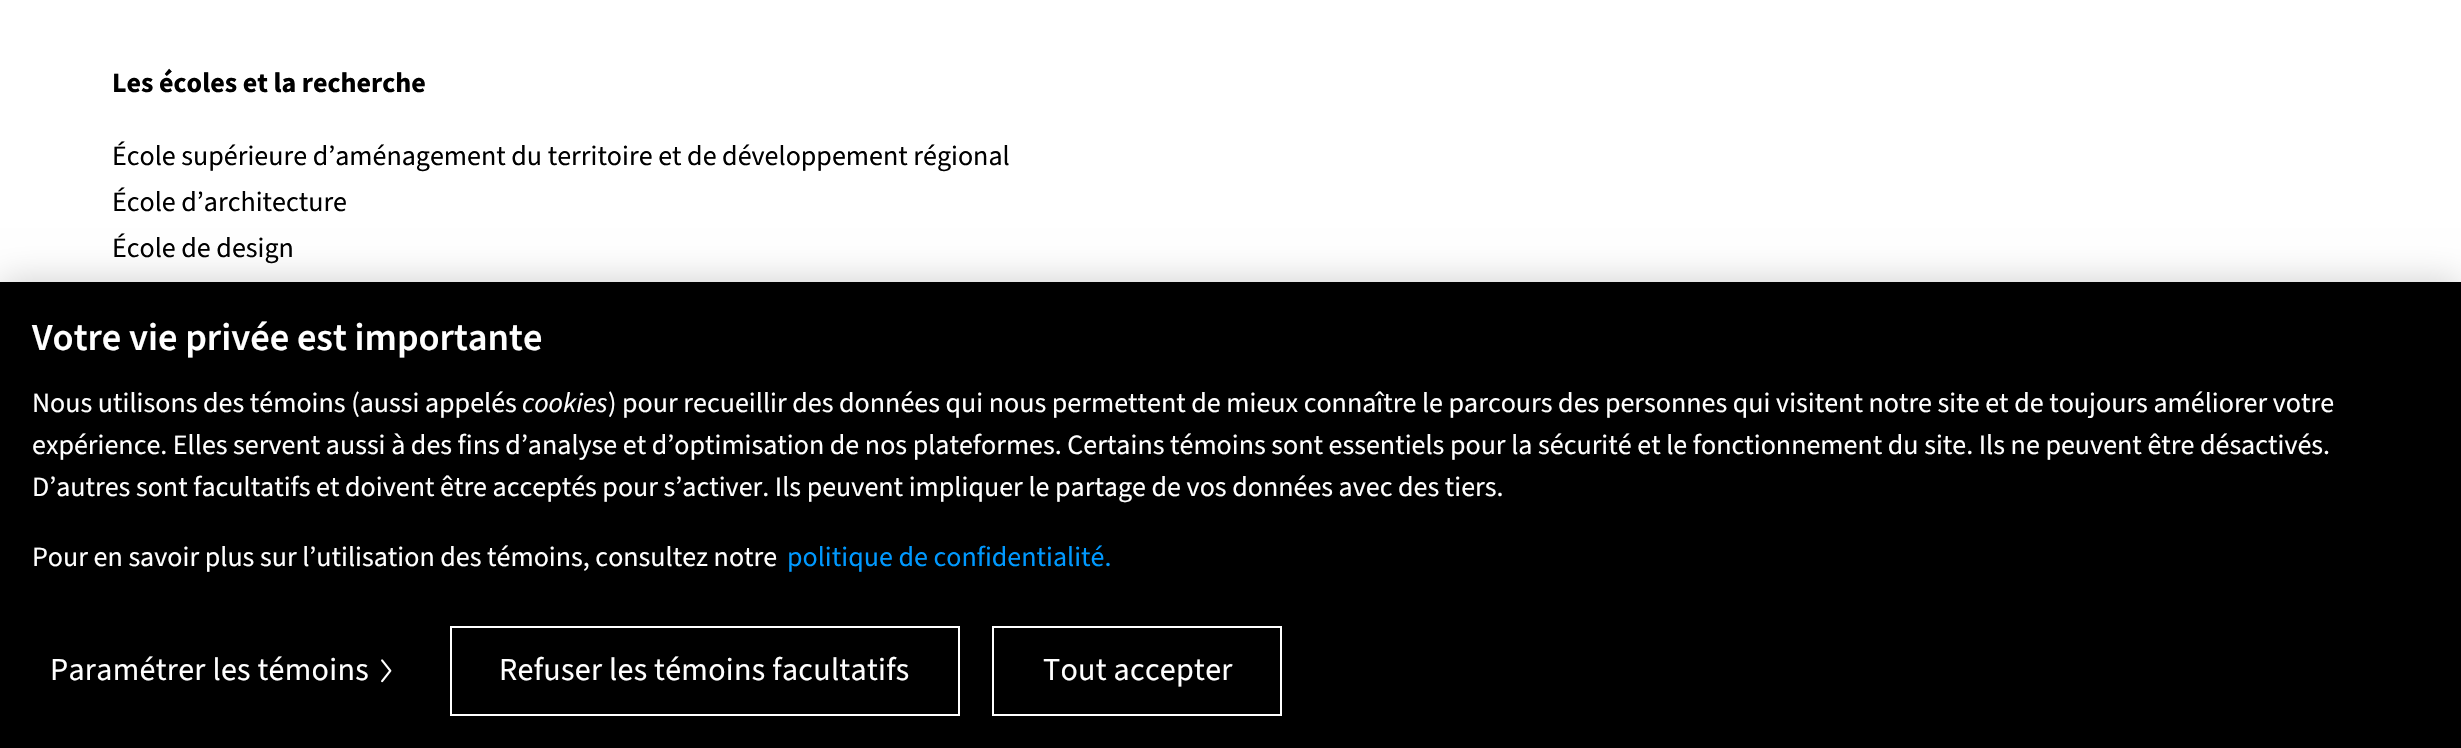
#include "include/core/SkBlurTypes.h"
#include "include/core/SkCanvas.h"
#include "include/core/SkData.h"
#include "include/core/SkFont.h"
#include "include/core/SkFontMgr.h"
#include "include/core/SkImage.h"
#include "include/core/SkMaskFilter.h"
#include "include/core/SkPaint.h"
#include "include/core/SkPathBuilder.h"
#include "include/core/SkTextBlob.h"
#include "include/effects/SkDashPathEffect.h"
#include "include/effects/SkGradientShader.h"
#include "include/utils/SkParsePath.h"

extern sk_sp<SkFontMgr> fontMgr;

void draw(SkCanvas* canvas) {
    SkPaint p;
    p.setAntiAlias(true);
    auto font = [&](const char* family, int weight, float size, bool italic = false) {
        SkFontStyle style(weight, SkFontStyle::kNormal_Width,
            italic ? SkFontStyle::kItalic_Slant : SkFontStyle::kUpright_Slant);
        SkFont result(fontMgr->matchFamilyStyle(family, style), size);
        result.setSubpixel(true);
        return result;
    };
    auto drawTracked = [&](const char* s, float x, float y, const SkFont& font, const SkPaint& ink, float letter, float word) {
        std::vector<SkGlyphID> glyphs(font.countText(s, strlen(s), SkTextEncoding::kUTF8));
        std::vector<float> xs(glyphs.size());
        font.textToGlyphs(s, strlen(s), SkTextEncoding::kUTF8, glyphs);
        font.getXPos(glyphs, xs, x);
        float extra = 0;
        for (size_t i = 0; i < glyphs.size(); i++) {
            xs[i] += extra;
            extra += letter + word * (glyphs[i] == font.unicharToGlyph(' '));
        }
        canvas->drawTextBlob(SkTextBlob::MakeFromPosHGlyphs(glyphs, xs, y, font), 0, 0, ink);
    };
    auto drawPhoto = [&](const char* path, float l, float t, float r, float b) {
        auto image = SkImages::DeferredFromEncodedData(SkData::MakeFromFileName(path));
        canvas->drawImageRect(image, SkRect::MakeLTRB(l, t, r, b), SkSamplingOptions());
    };
    canvas->clear(0xFFFFFFFF);
    auto font1 = font("Source Sans Pro", 700, 28);
    p.setColor(0xFF000000);
    canvas->drawString("Les écoles et la recherche", 112, 92, font1, p);
    auto font2 = font("Source Sans 3", 400, 28);
    {
        const struct { const char* s; float x, y; } items[] = {
            {"École supérieure d’aménagement du territoire et de développement régional", 112, 165},
            {"École d’architecture", 112, 211},
            {"École de design", 112, 257},
        };
        for (auto [s, x, y] : items) {
            canvas->drawString(s, x, y, font2, p);
        }
    }
    p.setColor(0x33000000);
    p.setMaskFilter(SkMaskFilter::MakeBlur(kNormal_SkBlurStyle, 18));
    canvas->drawRect(SkRect::MakeLTRB(0, 282, 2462, 748), p);
    p.setMaskFilter(nullptr);
    p.setColor(0xFF000000);
    canvas->drawRect(SkRect::MakeLTRB(0, 282, 2461, 748), p);
    auto font3 = font("Source Sans 3", 600, 38.4f);
    p.setColor(0xFFFFFFFF);
    canvas->drawString("Votre vie privée est importante", 32, 350, font3, p);
    canvas->drawString("Nous utilisons des témoins (aussi appelés", 32, 412, font2, p);
    auto font4 = font("Source Sans 3", 400, 28, true);
    canvas->drawString("cookies", 522, 412, font4, p);
    {
        const struct { const char* s; float x, y; } items[] = {
            {") pour recueillir des données qui nous permettent de mieux connaître le parcours des personnes qui visitent notre site et de toujours améliorer votre", 608, 412},
            {"expérience. Elles servent aussi à des fins d’analyse et d’optimisation de nos plateformes. Certains témoins sont essentiels pour la sécurité et le fonctionnement du site. Ils ne peuvent être désactivés.", 32, 454},
            {"D’autres sont facultatifs et doivent être acceptés pour s’activer. Ils peuvent impliquer le partage de vos données avec des tiers.", 32, 496},
            {"Pour en savoir plus sur l’utilisation des témoins, consultez notre", 32, 566},
        };
        for (auto [s, x, y] : items) {
            canvas->drawString(s, x, y, font2, p);
        }
    }
    p.setColor(0xFF0099FF);
    canvas->drawString("politique de confidentialité.", 787, 566, font2, p);
    auto font5 = font("Source Sans 3", 400, 32);
    p.setColor(0xFFFFFFFF);
    drawTracked("Paramétrer les témoins", 50, 680, font5, p, 0.3f, 0);
    drawPhoto("media/1.png", 381, 659, 392, 683);
    p.setStyle(SkPaint::kStroke_Style);
    p.setStrokeWidth(2);
    canvas->drawRect(SkRect::MakeLTRB(451, 627, 959, 715), p);
    p.setStyle(SkPaint::kFill_Style);
    drawTracked("Refuser les témoins facultatifs", 499, 680, font5, p, 0.3f, 0);
    p.setStyle(SkPaint::kStroke_Style);
    canvas->drawRect(SkRect::MakeLTRB(993, 627, 1281, 715), p);
    p.setStyle(SkPaint::kFill_Style);
    drawTracked("Tout accepter", 1043, 680, font5, p, 0.3f, 0);
}
